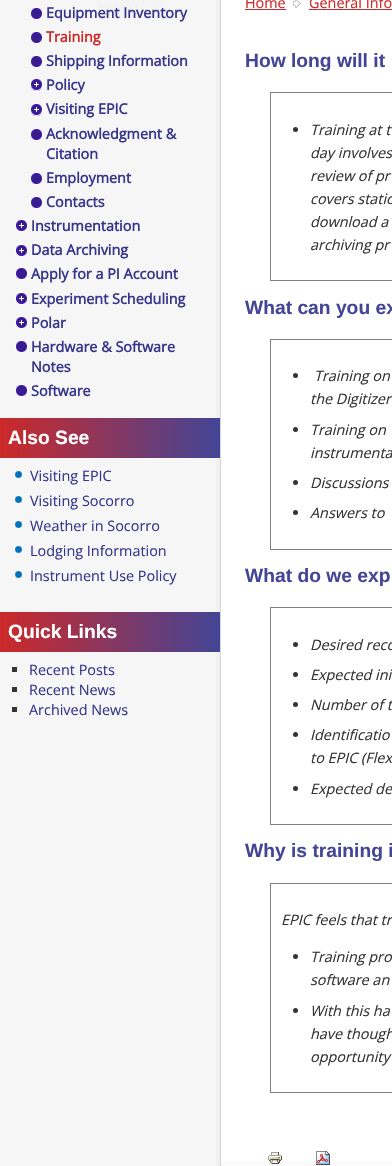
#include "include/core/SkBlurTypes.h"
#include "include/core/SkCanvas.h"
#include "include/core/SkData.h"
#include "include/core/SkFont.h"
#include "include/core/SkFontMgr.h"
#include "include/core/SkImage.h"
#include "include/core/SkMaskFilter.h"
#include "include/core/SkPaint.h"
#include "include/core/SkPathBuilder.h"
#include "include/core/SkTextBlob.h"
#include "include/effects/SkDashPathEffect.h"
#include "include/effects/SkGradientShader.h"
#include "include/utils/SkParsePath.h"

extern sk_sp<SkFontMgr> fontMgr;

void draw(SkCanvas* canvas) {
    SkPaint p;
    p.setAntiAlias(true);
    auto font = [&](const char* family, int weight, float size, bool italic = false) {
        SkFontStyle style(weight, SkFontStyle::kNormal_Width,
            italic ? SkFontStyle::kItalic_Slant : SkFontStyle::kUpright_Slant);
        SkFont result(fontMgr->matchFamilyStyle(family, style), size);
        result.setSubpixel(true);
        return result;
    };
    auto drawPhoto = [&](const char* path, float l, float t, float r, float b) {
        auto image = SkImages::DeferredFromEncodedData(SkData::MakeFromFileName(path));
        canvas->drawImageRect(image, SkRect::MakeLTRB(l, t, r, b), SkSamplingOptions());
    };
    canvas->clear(0xFFFFFFFF);
    p.setColor(0xFFFAFAFA);
    canvas->drawRect(SkRect::MakeLTRB(221, 1161, 392, 1166), p);
    drawPhoto("media/1.png", 0, 0, 221, 1166);
    drawPhoto("media/2.png", 98, 0, 163, 17);
    drawPhoto("media/3.png", 30, 7, 43, 20);
    auto font1 = font("Open Sans", 700, 14.4f);
    p.setColor(0xFF37358C);
    canvas->drawString("Equipment Inventory", 46, 18, font1, p);
    drawPhoto("media/3.png", 30, 31, 43, 44);
    p.setColor(0xFFCC2929);
    canvas->drawString("Training", 46, 42, font1, p);
    drawPhoto("media/3.png", 30, 55, 43, 68);
    p.setColor(0xFF37358C);
    canvas->drawString("Shipping Information", 46, 66, font1, p);
    drawPhoto("media/4.png", 30, 82, 43, 92);
    drawPhoto("media/5.png", 31, 78, 42, 91);
    canvas->drawString("Policy", 46, 90, font1, p);
    drawPhoto("media/4.png", 30, 107, 43, 117);
    drawPhoto("media/5.png", 31, 103, 42, 116);
    canvas->drawString("Visiting EPIC", 46, 114, font1, p);
    drawPhoto("media/3.png", 30, 128, 43, 141);
    canvas->drawString("Acknowledgment &", 46, 139, font1, p);
    canvas->drawString("Citation", 46, 159, font1, p);
    drawPhoto("media/3.png", 30, 172, 43, 185);
    canvas->drawString("Employment", 46, 183, font1, p);
    drawPhoto("media/3.png", 30, 196, 43, 209);
    canvas->drawString("Contacts", 46, 207, font1, p);
    drawPhoto("media/6.png", 15, 219, 28, 232);
    canvas->drawString("Instrumentation", 31, 231, font1, p);
    drawPhoto("media/6.png", 15, 244, 28, 257);
    canvas->drawString("Data Archiving", 31, 255, font1, p);
    drawPhoto("media/3.png", 15, 267, 28, 280);
    canvas->drawString("Apply for a PI Account", 31, 279, font1, p);
    drawPhoto("media/6.png", 15, 292, 28, 305);
    canvas->drawString("Experiment Scheduling", 31, 304, font1, p);
    drawPhoto("media/6.png", 15, 316, 28, 329);
    canvas->drawString("Polar", 31, 328, font1, p);
    drawPhoto("media/3.png", 15, 340, 28, 353);
    canvas->drawString("Hardware & Software", 31, 352, font1, p);
    canvas->drawString("Notes", 31, 372, font1, p);
    drawPhoto("media/3.png", 15, 384, 28, 397);
    canvas->drawString("Software", 31, 396, font1, p);
    {
        const SkColor colors[] = {0xFFCC2929, 0xFF434596};
        const float stops[] = {0, 1};
        const SkPoint ends[] = {{0, 438}, {220, 438}};
        p.setShader(SkGradientShader::MakeLinear(ends, colors, stops, 2, SkTileMode::kClamp));
        p.setAlpha(255);
    }
    canvas->drawRect(SkRect::MakeLTRB(0, 418, 220, 458), p);
    auto font2 = font("Liberation Sans", 700, 19.25f);
    p.setShader(nullptr);
    p.setColor(0xFFFFFFFF);
    canvas->drawString("Also See", 8, 444, font2, p);
    drawPhoto("media/7.png", 15, 471, 22, 478);
    auto font3 = font("Open Sans", 400, 14.4f);
    p.setColor(0xFF37358C);
    canvas->drawString("Visiting EPIC", 30, 481, font3, p);
    drawPhoto("media/7.png", 15, 496, 22, 503);
    canvas->drawString("Visiting Socorro", 30, 506, font3, p);
    drawPhoto("media/7.png", 15, 521, 22, 528);
    canvas->drawString("Weather in Socorro", 30, 531, font3, p);
    drawPhoto("media/7.png", 15, 546, 22, 553);
    canvas->drawString("Lodging Information", 30, 556, font3, p);
    drawPhoto("media/7.png", 15, 571, 22, 578);
    canvas->drawString("Instrument Use Policy", 30, 581, font3, p);
    {
        const SkColor colors[] = {0xFFCC2929, 0xFF434596};
        const float stops[] = {0, 1};
        const SkPoint ends[] = {{0, 632}, {220, 632}};
        p.setShader(SkGradientShader::MakeLinear(ends, colors, stops, 2, SkTileMode::kClamp));
        p.setAlpha(255);
    }
    canvas->drawRect(SkRect::MakeLTRB(0, 612, 220, 652), p);
    p.setShader(nullptr);
    p.setColor(0xFFFFFFFF);
    canvas->drawString("Quick Links", 8, 638, font2, p);
    p.setColor(0xFF343434);
    canvas->drawRect(SkRect::MakeLTRB(12, 667, 17, 672), p);
    p.setColor(0xFF37358C);
    canvas->drawString("Recent Posts", 29, 675, font3, p);
    p.setColor(0xFF343434);
    canvas->drawRect(SkRect::MakeLTRB(12, 687, 17, 692), p);
    p.setColor(0xFF37358C);
    canvas->drawString("Recent News", 29, 695, font3, p);
    p.setColor(0xFF343434);
    canvas->drawRect(SkRect::MakeLTRB(12, 707, 17, 712), p);
    p.setColor(0xFF37358C);
    canvas->drawString("Archived News", 29, 715, font3, p);
    p.setColor(0xFFCC2929);
    canvas->drawString("Home", 245, 8, font3, p);
    canvas->drawRect(SkRect::MakeLTRB(245, 9, 286, 10), p);
    drawPhoto("media/8.png", 293, 0, 301, 8);
    canvas->drawString("General Info", 309, 8, font3, p);
    canvas->drawRect(SkRect::MakeLTRB(309, 9, 392, 10), p);
    p.setColor(0xFF434596);
    canvas->drawString("How long will it", 245, 67, font2, p);
    p.setStyle(SkPaint::kStroke_Style);
    p.setStrokeWidth(1);
    p.setColor(0xFF808080);
    canvas->drawRect(SkRect::MakeLTRB(270.5f, 92.5f, 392.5f, 280.5f), p);
    p.setStyle(SkPaint::kFill_Style);
    p.setColor(0xFF343434);
    canvas->drawCircle(295.5f, 129.5f, 2.5f, p);
    auto font4 = font("Open Sans", 400, 14.4f, true);
    {
        const struct { const char* s; float x, y; } items[] = {
            {"Training at t", 310, 135},
            {"day involves", 310, 158},
            {"review of pr", 310, 181},
            {"covers statio", 310, 204},
            {"download a", 310, 227},
            {"archiving pr", 310, 250},
        };
        for (auto [s, x, y] : items) {
            canvas->drawString(s, x, y, font4, p);
        }
    }
    p.setColor(0xFF434596);
    canvas->drawString("What can you ex", 245, 314, font2, p);
    p.setStyle(SkPaint::kStroke_Style);
    p.setColor(0xFF808080);
    canvas->drawRect(SkRect::MakeLTRB(270.5f, 339.5f, 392.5f, 549.5f), p);
    p.setStyle(SkPaint::kFill_Style);
    p.setColor(0xFF343434);
    canvas->drawCircle(295.5f, 375.5f, 2.5f, p);
    canvas->drawString("Training on", 314, 381, font4, p);
    canvas->drawString("the Digitizer", 310, 404, font4, p);
    canvas->drawCircle(295.5f, 429.5f, 2.5f, p);
    canvas->drawString("Training on", 310, 435, font4, p);
    canvas->drawString("instrumenta", 310, 458, font4, p);
    canvas->drawCircle(295.5f, 482.5f, 2.5f, p);
    canvas->drawString("Discussions", 310, 488, font4, p);
    canvas->drawCircle(295.5f, 512.5f, 2.5f, p);
    canvas->drawString("Answers to", 310, 518, font4, p);
    p.setColor(0xFF434596);
    canvas->drawString("What do we exp", 245, 582, font2, p);
    p.setStyle(SkPaint::kStroke_Style);
    p.setColor(0xFF808080);
    canvas->drawRect(SkRect::MakeLTRB(270.5f, 607.5f, 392.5f, 824.5f), p);
    p.setStyle(SkPaint::kFill_Style);
    p.setColor(0xFF343434);
    canvas->drawCircle(295.5f, 644.5f, 2.5f, p);
    canvas->drawString("Desired reco", 310, 650, font4, p);
    canvas->drawCircle(295.5f, 674.5f, 2.5f, p);
    canvas->drawString("Expected ini", 310, 680, font4, p);
    canvas->drawCircle(295.5f, 704.5f, 2.5f, p);
    canvas->drawString("Number of t", 310, 710, font4, p);
    canvas->drawCircle(295.5f, 734.5f, 2.5f, p);
    canvas->drawString("Identificatio", 310, 740, font4, p);
    canvas->drawString("to EPIC (Flex", 310, 763, font4, p);
    canvas->drawCircle(295.5f, 788.5f, 2.5f, p);
    canvas->drawString("Expected de", 310, 794, font4, p);
    p.setColor(0xFF434596);
    canvas->drawString("Why is training i", 245, 857, font2, p);
    p.setStyle(SkPaint::kStroke_Style);
    p.setColor(0xFF808080);
    canvas->drawRect(SkRect::MakeLTRB(270.5f, 883.5f, 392.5f, 1092.5f), p);
    p.setStyle(SkPaint::kFill_Style);
    p.setColor(0xFF343434);
    canvas->drawString("EPIC feels that tr", 281, 925, font4, p);
    canvas->drawCircle(295.5f, 956.5f, 2.5f, p);
    canvas->drawString("Training pro", 310, 962, font4, p);
    canvas->drawString("software an", 310, 985, font4, p);
    canvas->drawCircle(295.5f, 1010.5f, 2.5f, p);
    {
        const struct { const char* s; float x, y; } items[] = {
            {"With this ha", 310, 1016},
            {"have though", 310, 1039},
            {"opportunity", 310, 1062},
        };
        for (auto [s, x, y] : items) {
            canvas->drawString(s, x, y, font4, p);
        }
    }
    drawPhoto("media/9.png", 268, 1152, 282, 1164);
    drawPhoto("media/10.png", 316, 1151, 330, 1165);
}
